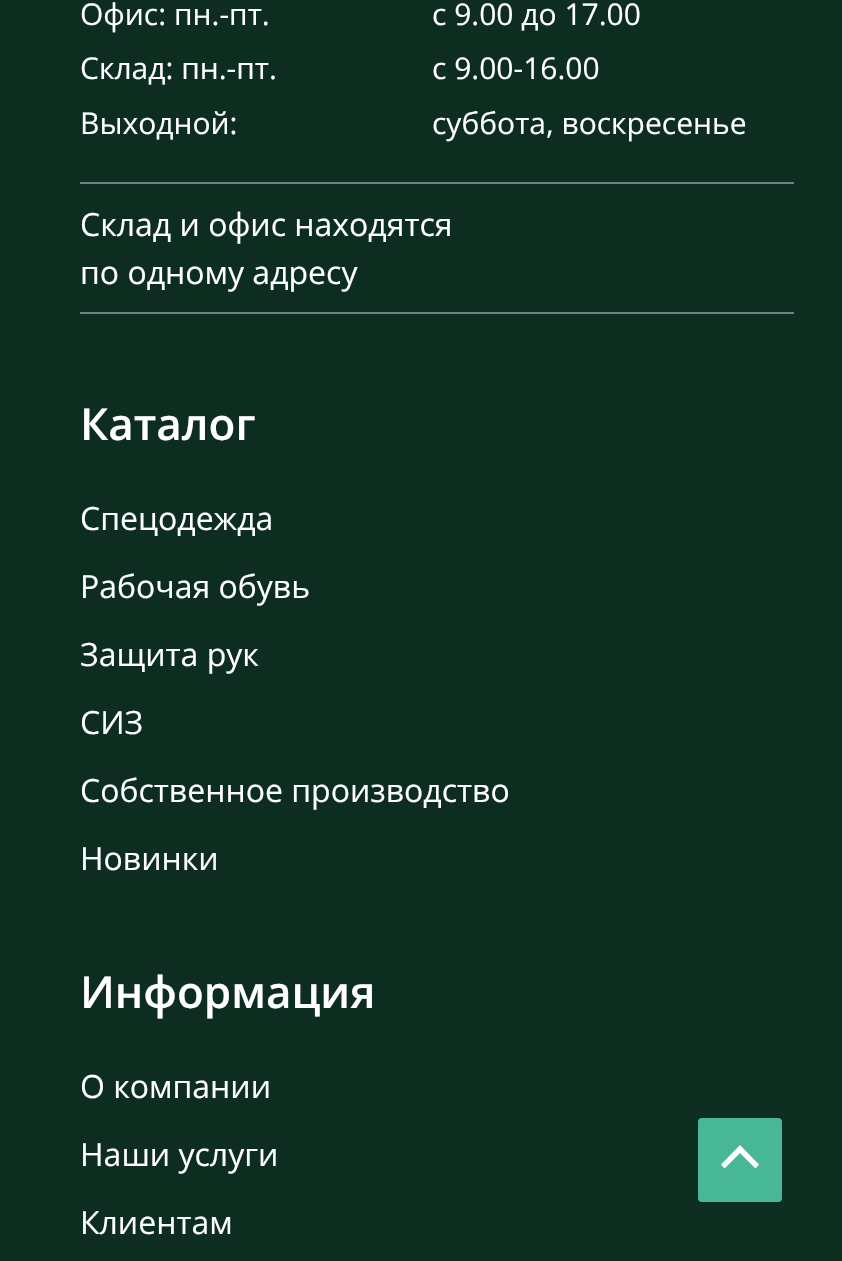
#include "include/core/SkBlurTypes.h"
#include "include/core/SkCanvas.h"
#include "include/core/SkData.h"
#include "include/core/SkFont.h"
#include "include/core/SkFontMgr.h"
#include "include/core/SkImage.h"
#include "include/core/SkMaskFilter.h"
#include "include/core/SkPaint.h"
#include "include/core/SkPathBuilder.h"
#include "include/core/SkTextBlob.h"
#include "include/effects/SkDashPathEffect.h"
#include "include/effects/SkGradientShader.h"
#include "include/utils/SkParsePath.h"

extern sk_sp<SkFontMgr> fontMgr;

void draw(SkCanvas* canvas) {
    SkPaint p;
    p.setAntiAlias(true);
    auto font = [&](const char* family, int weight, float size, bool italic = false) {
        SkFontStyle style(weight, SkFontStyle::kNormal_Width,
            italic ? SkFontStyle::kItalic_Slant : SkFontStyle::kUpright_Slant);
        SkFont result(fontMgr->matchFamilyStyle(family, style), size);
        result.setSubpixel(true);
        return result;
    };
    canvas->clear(0xFF0E2D21);
    auto font1 = font("Open Sans", 400, 30);
    p.setColor(0xFFFFFFFF);
    {
        const struct { const char* s; float x, y; } items[] = {
            {"Офис: пн.-пт.", 80, 25},
            {"с 9.00 до 17.00", 432, 25},
            {"Склад: пн.-пт.", 80, 79},
            {"с 9.00-16.00", 432, 79},
            {"Выходной:", 80, 134},
            {"суббота, воскресенье", 432, 134},
        };
        for (auto [s, x, y] : items) {
            canvas->drawString(s, x, y, font1, p);
        }
    }
    p.setColor(0xFF6E817A);
    canvas->drawRect(SkRect::MakeLTRB(80, 182, 794, 184), p);
    canvas->drawRect(SkRect::MakeLTRB(80, 312, 794, 314), p);
    auto font2 = font("Open Sans", 400, 32);
    p.setColor(0xFFFFFFFF);
    canvas->drawString("Склад и офис находятся", 80, 236, font2, p);
    canvas->drawString("по одному адресу", 80, 284, font2, p);
    auto font3 = font("Open Sans", 600, 44);
    canvas->drawString("Каталог", 80, 440, font3, p);
    {
        const struct { const char* s; float x, y; } items[] = {
            {"Спецодежда", 80, 530},
            {"Рабочая обувь", 80, 598},
            {"Защита рук", 80, 666},
            {"СИЗ", 80, 734},
            {"Собственное производство", 80, 802},
            {"Новинки", 80, 870},
        };
        for (auto [s, x, y] : items) {
            canvas->drawString(s, x, y, font2, p);
        }
    }
    canvas->drawString("Информация", 80, 1008, font3, p);
    {
        const struct { const char* s; float x, y; } items[] = {
            {"О компании", 80, 1098},
            {"Наши услуги", 80, 1166},
            {"Клиентам", 80, 1234},
        };
        for (auto [s, x, y] : items) {
            canvas->drawString(s, x, y, font2, p);
        }
    }
    p.setColor(0xFF48B795);
    canvas->drawRoundRect(SkRect::MakeLTRB(698, 1118, 782, 1202), 4, 4, p);
    p.setColor(0xFFFFFFFF);
    canvas->drawPath(SkPathBuilder().moveTo(759, 1164.5f).lineTo(740, 1145).lineTo(721, 1164.5f).lineTo(724.5f, 1168.5f).lineTo(740, 1153).lineTo(755.5f, 1168.5f).close().detach(), p);
}
